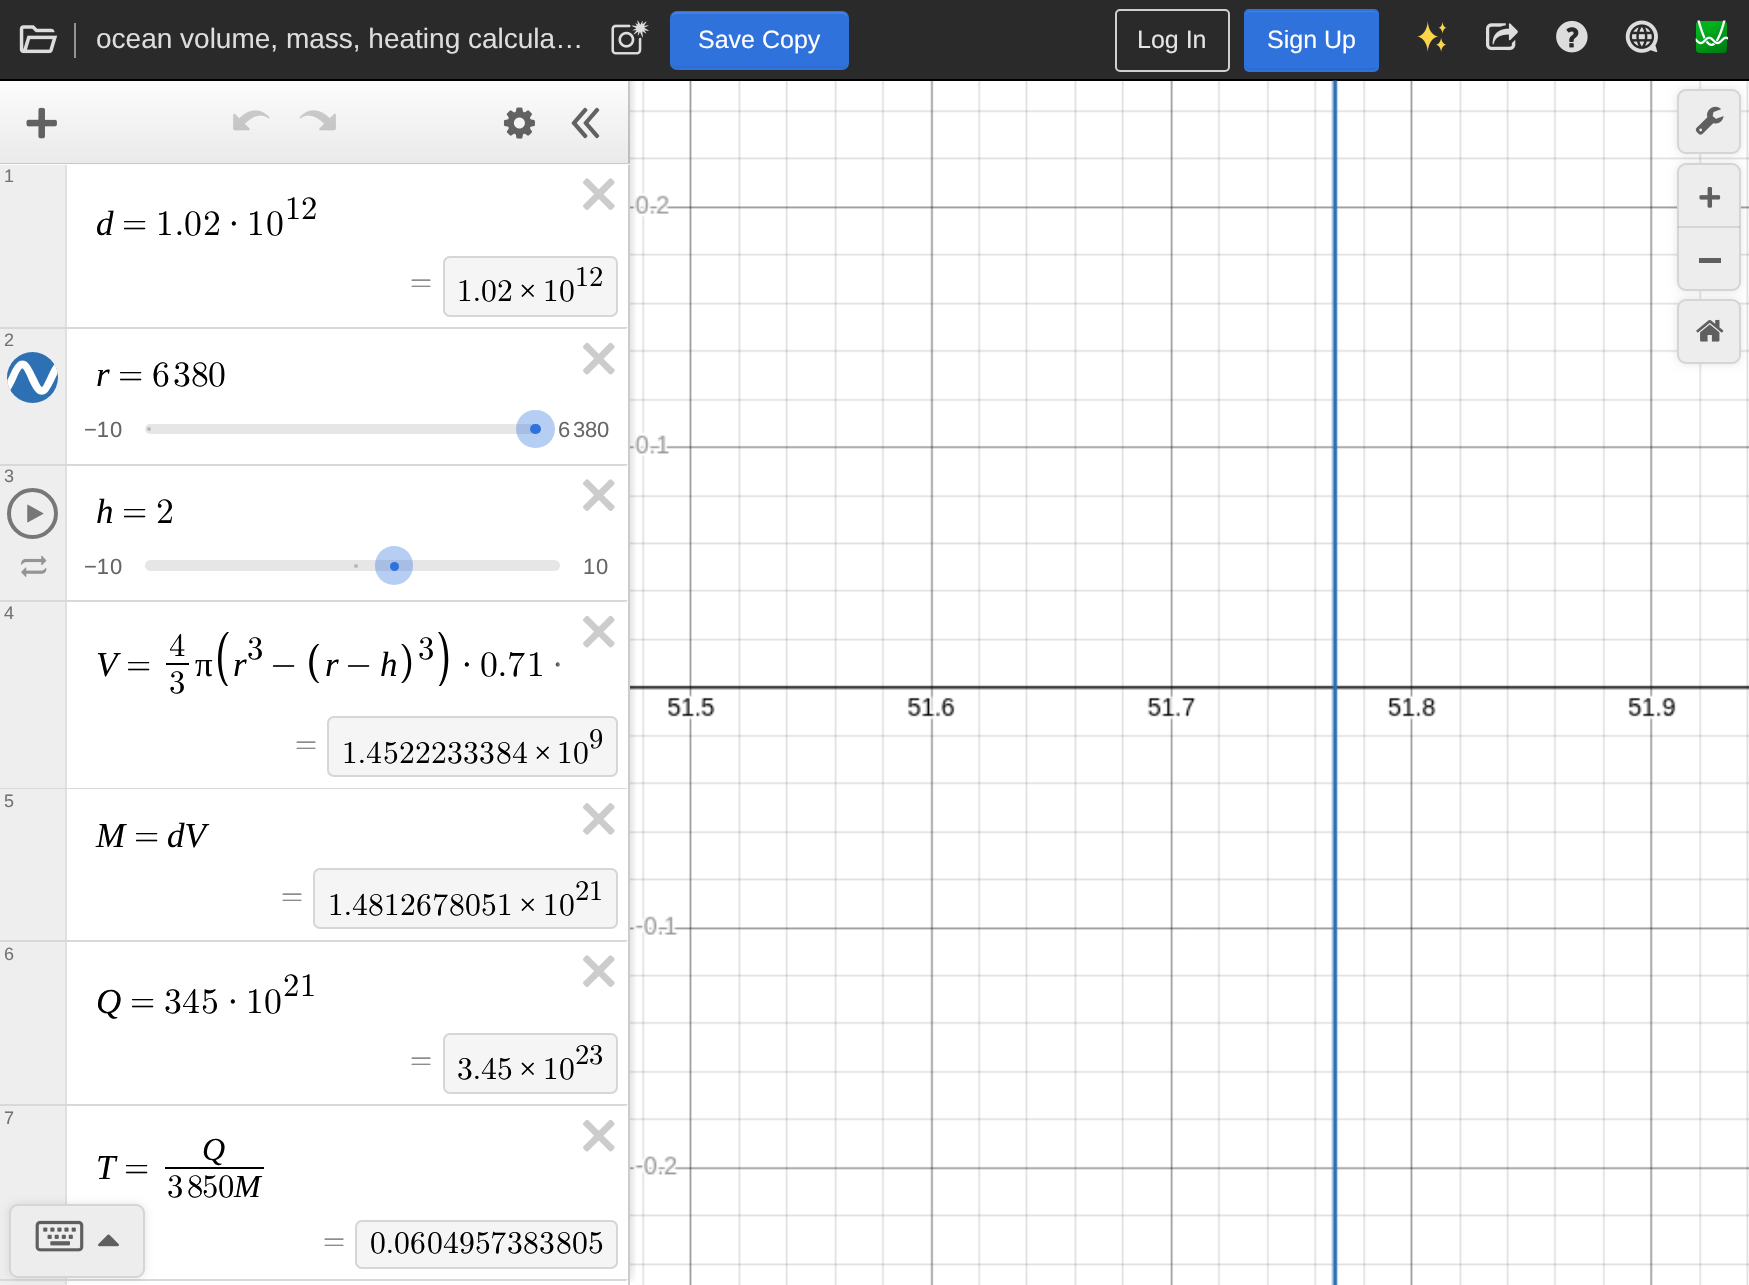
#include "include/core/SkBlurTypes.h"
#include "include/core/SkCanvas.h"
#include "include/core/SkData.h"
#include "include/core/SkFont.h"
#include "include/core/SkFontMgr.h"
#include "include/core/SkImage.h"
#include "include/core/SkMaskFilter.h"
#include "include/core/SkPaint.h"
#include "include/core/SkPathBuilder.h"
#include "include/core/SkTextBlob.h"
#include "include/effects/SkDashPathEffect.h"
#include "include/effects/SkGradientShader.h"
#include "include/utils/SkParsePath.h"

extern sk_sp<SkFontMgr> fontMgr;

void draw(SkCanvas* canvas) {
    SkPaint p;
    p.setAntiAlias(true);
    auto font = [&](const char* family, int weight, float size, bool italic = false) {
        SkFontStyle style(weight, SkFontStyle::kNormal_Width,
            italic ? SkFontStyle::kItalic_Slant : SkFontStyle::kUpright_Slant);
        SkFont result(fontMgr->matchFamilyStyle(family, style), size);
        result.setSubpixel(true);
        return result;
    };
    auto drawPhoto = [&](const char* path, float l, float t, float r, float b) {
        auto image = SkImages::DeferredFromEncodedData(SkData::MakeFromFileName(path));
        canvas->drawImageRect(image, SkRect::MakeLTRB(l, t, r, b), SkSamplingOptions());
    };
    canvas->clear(0xFFFFFFFF);
    p.setColor(0xFF2A2A2A);
    canvas->drawRect(SkRect::MakeLTRB(0, 0, 1749, 79), p);
    p.setColor(0xFF000000);
    canvas->drawRect(SkRect::MakeLTRB(0, 79, 1749, 81), p);
    drawPhoto("media/1.png", 19, 25, 58, 54);
    p.setColor(0xFF949494);
    canvas->drawRect(SkRect::MakeLTRB(74, 23, 76, 58), p);
    auto font1 = font("Liberation Sans", 400, 28);
    p.setColor(0xFFDDDDDD);
    canvas->drawString("ocean volume, mass, heating calcula…", 96, 48, font1, p);
    drawPhoto("media/2.png", 611, 20, 649, 55);
    p.setColor(0xFF2F72DC);
    canvas->drawRoundRect(SkRect::MakeLTRB(670, 11, 849, 70), 7, 7, p);
    p.setColor(0xFF2D6DD3);
    canvas->drawPath(SkPathBuilder().moveTo(672, 61).lineTo(672, 63).cubicTo(672, 66, 674, 68, 677, 68).lineTo(842, 68).cubicTo(845, 68, 847, 66, 847, 63).lineTo(847, 61).cubicTo(847, 64, 845, 66, 842, 66).lineTo(677, 66).cubicTo(674, 66, 672, 64, 672, 61).close().detach(), p);
    p.setColor(0xFF4480E0);
    canvas->drawPath(SkPathBuilder().moveTo(677, 14).lineTo(842, 14).cubicTo(845, 14, 847, 16, 847, 19).lineTo(847, 17).cubicTo(847, 14, 845, 12, 842, 12).lineTo(677, 12).cubicTo(674, 12, 672, 14, 672, 17).lineTo(672, 19).cubicTo(672, 16, 674, 14, 677, 14).close().detach(), p);
    auto font2 = font("Liberation Sans", 400, 25);
    p.setColor(0xFFFFFFFF);
    canvas->drawString("Save Copy", 698, 48, font2, p);
    p.setStyle(SkPaint::kStroke_Style);
    p.setStrokeWidth(2);
    p.setColor(0xFFD0D0D0);
    canvas->drawRoundRect(SkRect::MakeLTRB(1116, 10, 1229, 71), 4, 4, p);
    p.setStyle(SkPaint::kFill_Style);
    p.setColor(0xFFE5E5E5);
    canvas->drawString("Log In", 1137, 48, font2, p);
    p.setColor(0xFF2F72DC);
    canvas->drawRoundRect(SkRect::MakeLTRB(1244, 9, 1379, 72), 5, 5, p);
    p.setColor(0xFF2D6DD3);
    canvas->drawPath(SkPathBuilder().moveTo(1246, 65).lineTo(1246, 66).cubicTo(1246, 68, 1248, 70, 1250, 70).lineTo(1373, 70).cubicTo(1375, 70, 1377, 68, 1377, 66).lineTo(1377, 65).cubicTo(1377, 67, 1376, 68, 1374, 68).lineTo(1250, 68).cubicTo(1248, 68, 1246, 67, 1246, 65).close().detach(), p);
    p.setColor(0xFF4480E0);
    canvas->drawPath(SkPathBuilder().moveTo(1250, 12).lineTo(1374, 12).cubicTo(1376, 12, 1377, 14, 1377, 16).lineTo(1377, 15).cubicTo(1377, 13, 1375, 11, 1373, 11).lineTo(1250, 11).cubicTo(1248, 11, 1246, 13, 1246, 15).lineTo(1246, 16).cubicTo(1246, 14, 1248, 12, 1250, 12).close().detach(), p);
    p.setColor(0xFFFFFFFF);
    canvas->drawString("Sign Up", 1267, 48, font2, p);
    drawPhoto("media/3.png", 1417, 21, 1447, 52);
    drawPhoto("media/4.png", 1485, 23, 1518, 51);
    drawPhoto("media/5.png", 1556, 20, 1588, 53);
    drawPhoto("media/6.png", 1625, 20, 1658, 53);
    {
        const SkColor colors[] = {0xFF007C14, 0xFF00B21D};
        const float stops[] = {0.06f, 0.75f};
        const SkPoint ends[] = {{1722, 55}, {1701, 18}};
        p.setShader(SkGradientShader::MakeLinear(ends, colors, stops, 2, SkTileMode::kClamp));
        p.setAlpha(255);
    }
    canvas->drawRoundRect(SkRect::MakeLTRB(1696, 21, 1727, 53), 4, 4, p);
    drawPhoto("media/7.png", 1695, 20, 1728, 46);
    drawPhoto("media/22.png", 630, 80, 1749, 1285);
    p.setShader(nullptr);
    p.setColor(0x1A000000);
    p.setMaskFilter(SkMaskFilter::MakeBlur(kNormal_SkBlurStyle, 4.5f));
    canvas->drawRoundRect(SkRect::MakeLTRB(1677, 163, 1741, 291), 9, 9, p);
    p.setMaskFilter(nullptr);
    p.setColor(0xFFEDEDED);
    canvas->drawRoundRect(SkRect::MakeLTRB(1677, 163, 1741, 291), 9, 9, p);
    p.setStyle(SkPaint::kStroke_Style);
    p.setColor(0x1A000000);
    canvas->drawRoundRect(SkRect::MakeLTRB(1678, 164, 1740, 290), 8, 8, p);
    p.setStyle(SkPaint::kFill_Style);
    p.setMaskFilter(SkMaskFilter::MakeBlur(kNormal_SkBlurStyle, 4.5f));
    canvas->drawRoundRect(SkRect::MakeLTRB(1677, 89, 1741, 154), 9, 9, p);
    p.setMaskFilter(nullptr);
    p.setColor(0xFFEDEDED);
    canvas->drawRoundRect(SkRect::MakeLTRB(1677, 89, 1741, 154), 9, 9, p);
    p.setStyle(SkPaint::kStroke_Style);
    p.setColor(0x1A000000);
    canvas->drawRoundRect(SkRect::MakeLTRB(1678, 90, 1740, 153), 8, 8, p);
    drawPhoto("media/8.png", 1695, 106, 1724, 135);
    p.setStyle(SkPaint::kFill_Style);
    canvas->drawRect(SkRect::MakeLTRB(1678, 226, 1740, 228), p);
    drawPhoto("media/9.png", 1699, 187, 1721, 208);
    p.setColor(0xFF5F5F5F);
    canvas->drawRect(SkRect::MakeLTRB(1699, 258, 1721, 263), p);
    p.setColor(0x1A000000);
    p.setMaskFilter(SkMaskFilter::MakeBlur(kNormal_SkBlurStyle, 4.5f));
    canvas->drawRoundRect(SkRect::MakeLTRB(1677, 299, 1741, 364), 9, 9, p);
    p.setMaskFilter(nullptr);
    p.setColor(0xFFEDEDED);
    canvas->drawRoundRect(SkRect::MakeLTRB(1677, 299, 1741, 364), 9, 9, p);
    p.setStyle(SkPaint::kStroke_Style);
    p.setColor(0x1A000000);
    canvas->drawRoundRect(SkRect::MakeLTRB(1678, 300, 1740, 363), 8, 8, p);
    drawPhoto("media/10.png", 1696, 319, 1724, 342);
    canvas->save();
    canvas->clipRect(SkRect::MakeLTRB(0, 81, 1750, 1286));
    canvas->clipRect(SkRect::MakeLTRB(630, 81, 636, 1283));
    p.setStyle(SkPaint::kFill_Style);
    p.setColor(0x33000000);
    p.setMaskFilter(SkMaskFilter::MakeBlur(kNormal_SkBlurStyle, 5));
    canvas->drawRect(SkRect::MakeLTRB(0, 74, 630, 1279), p);
    p.setMaskFilter(nullptr);
    canvas->restore();
    {
        const SkColor colors[] = {0xFFFCFCFC, 0xFFEAEAEA};
        const float stops[] = {0, 1};
        const SkPoint ends[] = {{314, 80}, {314, 163}};
        p.setShader(SkGradientShader::MakeLinear(ends, colors, stops, 2, SkTileMode::kClamp));
        p.setAlpha(255);
    }
    canvas->drawRect(SkRect::MakeLTRB(0, 81, 630, 163), p);
    {
        const SkColor colors[] = {0xFFFCFCFC, 0xFFEAEAEA};
        const float stops[] = {0, 1};
        const SkPoint ends[] = {{314, 163}, {314, 245}};
        p.setShader(SkGradientShader::MakeLinear(ends, colors, stops, 2, SkTileMode::kClamp));
        p.setAlpha(255);
    }
    canvas->drawRect(SkRect::MakeLTRB(0, 163, 630, 165), p);
    p.setShader(nullptr);
    p.setColor(0x33000000);
    canvas->drawPath(SkPathBuilder().moveTo(630, 80).lineTo(630, 164).lineTo(628, 163).lineTo(628, 80).close().detach(), p);
    canvas->drawPath(SkPathBuilder().moveTo(630, 164).lineTo(0, 164).lineTo(0, 163).lineTo(628, 163).close().detach(), p);
    drawPhoto("media/11.png", 26, 107, 57, 139);
    drawPhoto("media/12.png", 233, 110, 270, 131);
    drawPhoto("media/13.png", 299, 110, 336, 131);
    drawPhoto("media/14.png", 503, 107, 535, 139);
    drawPhoto("media/15.png", 571, 107, 600, 139);
    {
        const struct { float l, t, r, b; SkColor color; } items[] = {
            {628, 165, 630, 1285, 0xFFCCCCCC},
            {0, 165, 65, 327, 0xFFEEEEEE},
            {65, 165, 67, 327, 0xFFE0E0E0},
        };
        for (auto [l, t, r, b, color] : items) {
            p.setColor(color);
            canvas->drawRect(SkRect::MakeLTRB(l, t, r, b), p);
        }
    }
    auto font3 = font("Liberation Sans", 400, 18);
    p.setColor(0xFF737373);
    canvas->drawString("1", 4, 182, font3, p);
    auto font4 = font("Liberation Serif", 400, 35, true);
    p.setColor(0xFF000000);
    canvas->drawString("d", 96, 235, font4, p);
    auto font5 = font("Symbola", 400, 35);
    {
        const struct { const char* s; float x, y; } items[] = {
            {"=", 121, 235},
            {"1", 156, 235},
            {"0", 184, 235},
            {"2", 203, 235},
        };
        for (auto [s, x, y] : items) {
            canvas->drawString(s, x, y, font5, p);
        }
    }
    auto font6 = font("Liberation Serif", 400, 35);
    canvas->drawString("·", 228, 235, font6, p);
    canvas->drawString("1", 247, 235, font5, p);
    canvas->drawString("0", 266, 235, font5, p);
    auto font7 = font("Symbola", 400, 32);
    canvas->drawString("1", 285, 219, font7, p);
    canvas->drawString("2", 301, 219, font7, p);
    canvas->drawString(".", 175, 235, font5, p);
    drawPhoto("media/16.png", 583, 178, 615, 210);
    auto font8 = font("Symbola", 400, 31);
    p.setColor(0xFF737373);
    canvas->drawString("=", 409, 292, font8, p);
    p.setColor(0xFFF5F5F5);
    canvas->drawRoundRect(SkRect::MakeLTRB(443, 256, 618, 317), 7, 7, p);
    p.setStyle(SkPaint::kStroke_Style);
    p.setColor(0xCCCECECE);
    canvas->drawRoundRect(SkRect::MakeLTRB(444, 257, 617, 316), 6, 6, p);
    auto font9 = font("Symbola", 400, 28);
    p.setStyle(SkPaint::kFill_Style);
    p.setColor(0xFF000000);
    canvas->drawString("1", 575, 286, font9, p);
    canvas->drawString("2", 589, 286, font9, p);
    {
        const struct { const char* s; float x, y; } items[] = {
            {"1", 457, 301},
            {"0", 481, 301},
            {"2", 497, 301},
        };
        for (auto [s, x, y] : items) {
            canvas->drawString(s, x, y, font8, p);
        }
    }
    auto font10 = font("Liberation Serif", 400, 31);
    canvas->drawString("×", 519, 301, font10, p);
    {
        const struct { const char* s; float x, y; } items[] = {
            {"1", 543, 301},
            {"0", 559, 301},
            {".", 473, 301},
        };
        for (auto [s, x, y] : items) {
            canvas->drawString(s, x, y, font8, p);
        }
    }
    p.setColor(0xFFD8D8D8);
    canvas->drawPath(SkPathBuilder().moveTo(0, 327).lineTo(628, 327).lineTo(626, 329).lineTo(0, 329).close().detach(), p);
    p.setColor(0xFFEEEEEE);
    canvas->drawRect(SkRect::MakeLTRB(0, 329, 65, 464), p);
    p.setColor(0xFFE0E0E0);
    canvas->drawRect(SkRect::MakeLTRB(65, 329, 67, 464), p);
    p.setColor(0xFF737373);
    canvas->drawString("2", 4, 346, font3, p);
    p.setColor(0xFF2D70B3);
    canvas->drawCircle(32.5f, 377.5f, 25.5f, p);
    drawPhoto("media/17.png", 7, 360, 58, 395);
    p.setColor(0xFF000000);
    canvas->drawString("r", 96, 386, font4, p);
    {
        const struct { const char* s; float x, y; } items[] = {
            {"=", 117, 386},
            {"6", 152, 386},
            {"3", 173, 386},
            {"8", 191, 386},
            {"0", 208, 386},
        };
        for (auto [s, x, y] : items) {
            canvas->drawString(s, x, y, font5, p);
        }
    }
    drawPhoto("media/18.png", 583, 342, 615, 375);
    auto font11 = font("Liberation Sans", 400, 22);
    p.setColor(0xFF666666);
    canvas->drawString("−1", 84, 437, font11, p);
    canvas->drawString("0", 110, 437, font11, p);
    p.setColor(0xFFE6E6E6);
    canvas->drawRoundRect(SkRect::MakeLTRB(145, 424, 536, 434), 5, 5, p);
    p.setColor(0x592F72DC);
    canvas->drawRoundRect(SkRect::MakeLTRB(516, 410, 555, 448), 19, 19, p);
    p.setColor(0xFF2F72DC);
    canvas->drawRoundRect(SkRect::MakeLTRB(530, 424, 541, 434), 5, 5, p);
    p.setColor(0xFFB8B8B8);
    canvas->drawCircle(149, 429, 2, p);
    p.setColor(0xFF666666);
    {
        const struct { const char* s; float x, y; } items[] = {
            {"6", 558, 437},
            {"3", 573, 437},
            {"8", 585, 437},
            {"0", 597, 437},
        };
        for (auto [s, x, y] : items) {
            canvas->drawString(s, x, y, font11, p);
        }
    }
    p.setColor(0xFFD8D8D8);
    canvas->drawPath(SkPathBuilder().moveTo(0, 464).lineTo(628, 464).lineTo(626, 466).lineTo(0, 466).close().detach(), p);
    p.setColor(0xFFEEEEEE);
    canvas->drawRect(SkRect::MakeLTRB(0, 466, 65, 600), p);
    p.setColor(0xFFE0E0E0);
    canvas->drawRect(SkRect::MakeLTRB(65, 466, 67, 600), p);
    p.setColor(0xFF737373);
    canvas->drawString("3", 4, 482, font3, p);
    p.setStyle(SkPaint::kStroke_Style);
    p.setStrokeWidth(4);
    p.setColor(0xFF777777);
    canvas->drawCircle(32.5f, 513.5f, 23.5f, p);
    drawPhoto("media/19.png", 27, 504, 44, 523);
    drawPhoto("media/20.png", 21, 555, 47, 577);
    p.setStyle(SkPaint::kFill_Style);
    p.setColor(0xFF000000);
    canvas->drawString("h", 96, 523, font4, p);
    canvas->drawString("=", 121, 523, font5, p);
    canvas->drawString("2", 156, 523, font5, p);
    drawPhoto("media/16.png", 583, 479, 615, 511);
    p.setColor(0xFF666666);
    canvas->drawString("−1", 84, 574, font11, p);
    canvas->drawString("0", 110, 574, font11, p);
    p.setColor(0xFFE6E6E6);
    canvas->drawRoundRect(SkRect::MakeLTRB(145, 560, 560, 571), 5.5f, 5.5f, p);
    p.setColor(0x592F72DC);
    canvas->drawRoundRect(SkRect::MakeLTRB(375, 546, 413, 585), 19, 19, p);
    p.setColor(0xFF2F72DC);
    canvas->drawCircle(394.5f, 566.5f, 4.5f, p);
    p.setColor(0xFFB8B8B8);
    canvas->drawCircle(356, 566, 2, p);
    p.setColor(0xFF666666);
    canvas->drawString("1", 583, 574, font11, p);
    canvas->drawString("0", 596, 574, font11, p);
    p.setColor(0xFFD8D8D8);
    canvas->drawPath(SkPathBuilder().moveTo(0, 600).lineTo(628, 600).lineTo(626, 602).lineTo(0, 602).close().detach(), p);
    p.setColor(0xFFEEEEEE);
    canvas->drawRect(SkRect::MakeLTRB(0, 602, 65, 788), p);
    p.setColor(0xFFE0E0E0);
    canvas->drawRect(SkRect::MakeLTRB(65, 602, 67, 788), p);
    p.setColor(0xFF737373);
    canvas->drawString("4", 4, 619, font3, p);
    p.setColor(0xFF000000);
    canvas->drawString("V", 96, 676, font4, p);
    canvas->drawString("=", 125, 676, font5, p);
    canvas->drawString("4", 169, 656, font7, p);
    canvas->drawRect(SkRect::MakeLTRB(166, 663, 189, 665), p);
    canvas->drawString("3", 169, 693, font7, p);
    canvas->drawString("π", 195, 676, font6, p);
    canvas->save();
    canvas->clipRect(SkRect::MakeLTRB(214, 632, 233, 686));
    canvas->drawPath(SkPathBuilder().moveTo(229, 632).cubicTo(219, 642, 219, 677, 229, 687).lineTo(227, 687).cubicTo(215, 676, 215, 642, 227, 632).detach(), p);
    canvas->restore();
    canvas->drawString("3", 247, 659, font7, p);
    canvas->drawString("3", 418, 659, font7, p);
    canvas->drawString("r", 233, 676, font4, p);
    canvas->drawString("−", 270, 676, font5, p);
    canvas->drawPath(SkPathBuilder().moveTo(319.5f, 644).cubicTo(310.5f, 651.5f, 310.5f, 675.5f, 319.5f, 683).lineTo(317.5f, 683).cubicTo(306.5f, 675.5f, 306.5f, 651.5f, 317.5f, 644).detach(), p);
    canvas->drawString("r", 325, 676, font4, p);
    canvas->drawString("−", 345, 676, font5, p);
    canvas->drawString("h", 380, 676, font4, p);
    canvas->drawPath(SkPathBuilder().moveTo(401, 644).cubicTo(410.5f, 651.5f, 410.5f, 675.5f, 401, 683).lineTo(403, 683).cubicTo(414, 675.5f, 414, 651.5f, 403, 644).detach(), p);
    canvas->save();
    canvas->clipRect(SkRect::MakeLTRB(434, 632, 453, 686));
    canvas->drawPath(SkPathBuilder().moveTo(438, 632).cubicTo(447, 642, 447, 677, 438, 687).lineTo(440, 687).cubicTo(451, 676, 451, 642, 440, 632).detach(), p);
    canvas->restore();
    canvas->drawString("·", 461, 676, font6, p);
    {
        const struct { const char* s; float x, y; } items[] = {
            {"0", 480, 676},
            {"7", 508, 676},
            {"1", 527, 676},
        };
        for (auto [s, x, y] : items) {
            canvas->drawString(s, x, y, font5, p);
        }
    }
    canvas->drawString("·", 552, 676, font6, p);
    canvas->drawString(".", 498, 676, font5, p);
    {
        const SkColor colors[] = {0x00FFFFFF, 0xFFFFFFFF};
        const float stops[] = {0, 1};
        const SkPoint ends[] = {{553, 668}, {565, 668}};
        p.setShader(SkGradientShader::MakeLinear(ends, colors, stops, 2, SkTileMode::kClamp));
        p.setAlpha(255);
    }
    canvas->drawRect(SkRect::MakeLTRB(555, 662, 560, 667), p);
    drawPhoto("media/18.png", 583, 615, 615, 648);
    p.setShader(nullptr);
    p.setColor(0xFF737373);
    canvas->drawString("=", 294, 754, font8, p);
    p.setColor(0xFFF5F5F5);
    canvas->drawRoundRect(SkRect::MakeLTRB(327, 716, 618, 777), 7, 7, p);
    p.setStyle(SkPaint::kStroke_Style);
    p.setStrokeWidth(2);
    p.setColor(0xCCCECECE);
    canvas->drawRoundRect(SkRect::MakeLTRB(328, 717, 617, 776), 6, 6, p);
    p.setStyle(SkPaint::kFill_Style);
    p.setColor(0xFF000000);
    canvas->drawString("9", 589, 748, font9, p);
    {
        const struct { const char* s; float x, y; } items[] = {
            {"1", 342, 763},
            {"4", 366, 763},
            {"5", 383, 763},
            {"2", 399, 763},
            {"2", 415, 763},
            {"2", 431, 763},
            {"3", 447, 763},
            {"3", 463, 763},
            {"3", 479, 763},
            {"8", 496, 763},
            {"4", 512, 763},
        };
        for (auto [s, x, y] : items) {
            canvas->drawString(s, x, y, font8, p);
        }
    }
    canvas->drawString("×", 534, 763, font10, p);
    {
        const struct { const char* s; float x, y; } items[] = {
            {"1", 557, 763},
            {"0", 573, 763},
            {".", 358, 763},
        };
        for (auto [s, x, y] : items) {
            canvas->drawString(s, x, y, font8, p);
        }
    }
    p.setColor(0xFFD8D8D8);
    canvas->drawPath(SkPathBuilder().moveTo(0, 788).lineTo(628, 788).lineTo(626, 789).lineTo(0, 789).close().detach(), p);
    p.setColor(0xFFEEEEEE);
    canvas->drawRect(SkRect::MakeLTRB(0, 789, 65, 940), p);
    p.setColor(0xFFE0E0E0);
    canvas->drawRect(SkRect::MakeLTRB(65, 789, 67, 940), p);
    p.setColor(0xFF737373);
    canvas->drawString("5", 4, 807, font3, p);
    p.setColor(0xFF000000);
    canvas->drawString("M", 96, 847, font4, p);
    canvas->drawString("=", 133, 847, font5, p);
    canvas->drawString("dV", 167, 847, font4, p);
    drawPhoto("media/21.png", 583, 803, 615, 835);
    p.setColor(0xFF737373);
    canvas->drawString("=", 280, 906, font8, p);
    p.setColor(0xFFF5F5F5);
    canvas->drawRoundRect(SkRect::MakeLTRB(313, 868, 618, 929), 7, 7, p);
    p.setStyle(SkPaint::kStroke_Style);
    p.setColor(0xCCCECECE);
    canvas->drawRoundRect(SkRect::MakeLTRB(314, 869, 617, 928), 6, 6, p);
    p.setStyle(SkPaint::kFill_Style);
    p.setColor(0xFF000000);
    canvas->drawString("2", 575, 900, font9, p);
    canvas->drawString("1", 589, 900, font9, p);
    {
        const struct { const char* s; float x, y; } items[] = {
            {"1", 328, 915},
            {"4", 352, 915},
            {"8", 368, 915},
            {"1", 384, 915},
            {"2", 400, 915},
            {"6", 416, 915},
            {"7", 433, 915},
            {"8", 449, 915},
            {"0", 465, 915},
            {"5", 481, 915},
            {"1", 497, 915},
        };
        for (auto [s, x, y] : items) {
            canvas->drawString(s, x, y, font8, p);
        }
    }
    canvas->drawString("×", 519, 915, font10, p);
    {
        const struct { const char* s; float x, y; } items[] = {
            {"1", 543, 915},
            {"0", 559, 915},
            {".", 344, 915},
        };
        for (auto [s, x, y] : items) {
            canvas->drawString(s, x, y, font8, p);
        }
    }
    p.setColor(0xFFD8D8D8);
    canvas->drawPath(SkPathBuilder().moveTo(0, 940).lineTo(628, 940).lineTo(626, 942).lineTo(0, 942).close().detach(), p);
    p.setColor(0xFFEEEEEE);
    canvas->drawRect(SkRect::MakeLTRB(0, 942, 65, 1104), p);
    p.setColor(0xFFE0E0E0);
    canvas->drawRect(SkRect::MakeLTRB(65, 942, 67, 1104), p);
    p.setColor(0xFF737373);
    canvas->drawString("6", 4, 960, font3, p);
    p.setColor(0xFF000000);
    canvas->drawString("2", 283, 996, font7, p);
    canvas->drawString("1", 300, 996, font7, p);
    canvas->drawString("Q", 96, 1013, font4, p);
    {
        const struct { const char* s; float x, y; } items[] = {
            {"=", 129, 1013},
            {"3", 164, 1013},
            {"4", 182, 1013},
            {"5", 201, 1013},
        };
        for (auto [s, x, y] : items) {
            canvas->drawString(s, x, y, font5, p);
        }
    }
    canvas->drawString("·", 227, 1013, font6, p);
    canvas->drawString("1", 246, 1013, font5, p);
    canvas->drawString("0", 264, 1013, font5, p);
    drawPhoto("media/16.png", 583, 955, 615, 987);
    p.setColor(0xFF737373);
    canvas->drawString("=", 409, 1070, font8, p);
    p.setColor(0xFFF5F5F5);
    canvas->drawRoundRect(SkRect::MakeLTRB(443, 1033, 618, 1094), 7, 7, p);
    p.setStyle(SkPaint::kStroke_Style);
    p.setColor(0xCCCECECE);
    canvas->drawRoundRect(SkRect::MakeLTRB(444, 1034, 617, 1093), 6, 6, p);
    p.setStyle(SkPaint::kFill_Style);
    p.setColor(0xFF000000);
    canvas->drawString("2", 575, 1064, font9, p);
    canvas->drawString("3", 589, 1064, font9, p);
    {
        const struct { const char* s; float x, y; } items[] = {
            {"3", 457, 1079},
            {"4", 481, 1079},
            {"5", 497, 1079},
        };
        for (auto [s, x, y] : items) {
            canvas->drawString(s, x, y, font8, p);
        }
    }
    canvas->drawString("×", 519, 1079, font10, p);
    {
        const struct { const char* s; float x, y; } items[] = {
            {"1", 543, 1079},
            {"0", 559, 1079},
            {".", 473, 1079},
        };
        for (auto [s, x, y] : items) {
            canvas->drawString(s, x, y, font8, p);
        }
    }
    p.setColor(0xFFD8D8D8);
    canvas->drawPath(SkPathBuilder().moveTo(0, 1104).lineTo(628, 1104).lineTo(626, 1106).lineTo(0, 1106).close().detach(), p);
    p.setColor(0xFFEEEEEE);
    canvas->drawRect(SkRect::MakeLTRB(0, 1106, 65, 1279), p);
    p.setColor(0xFFE0E0E0);
    canvas->drawRect(SkRect::MakeLTRB(65, 1106, 67, 1279), p);
    p.setColor(0xFF737373);
    canvas->drawString("7", 4, 1124, font3, p);
    p.setColor(0xFF000000);
    canvas->drawString("T", 96, 1179, font4, p);
    canvas->drawString("=", 123, 1179, font5, p);
    auto font12 = font("Liberation Serif", 400, 32, true);
    canvas->drawString("Q", 202, 1160, font12, p);
    canvas->drawRect(SkRect::MakeLTRB(165, 1167, 264, 1169), p);
    {
        const struct { const char* s; float x, y; } items[] = {
            {"3", 167, 1197},
            {"8", 187, 1197},
            {"5", 202, 1197},
            {"0", 218, 1197},
        };
        for (auto [s, x, y] : items) {
            canvas->drawString(s, x, y, font7, p);
        }
    }
    canvas->drawString("M", 234, 1197, font12, p);
    drawPhoto("media/18.png", 583, 1119, 615, 1152);
    p.setColor(0xFF737373);
    canvas->drawString("=", 322, 1251, font8, p);
    p.setColor(0xFFF5F5F5);
    canvas->drawRoundRect(SkRect::MakeLTRB(355, 1220, 618, 1269), 7, 7, p);
    p.setStyle(SkPaint::kStroke_Style);
    p.setColor(0xCCCECECE);
    canvas->drawRoundRect(SkRect::MakeLTRB(356, 1221, 617, 1268), 6, 6, p);
    p.setStyle(SkPaint::kFill_Style);
    p.setColor(0xFF000000);
    {
        const struct { const char* s; float x, y; } items[] = {
            {"0", 370, 1253},
            {".", 386, 1253},
            {"0", 394, 1253},
            {"6", 410, 1253},
            {"0", 427, 1253},
            {"4", 443, 1253},
            {"9", 459, 1253},
            {"5", 475, 1253},
            {"7", 491, 1253},
            {"3", 507, 1253},
            {"8", 523, 1253},
            {"3", 539, 1253},
            {"8", 556, 1253},
            {"0", 572, 1253},
            {"5", 588, 1253},
        };
        for (auto [s, x, y] : items) {
            canvas->drawString(s, x, y, font8, p);
        }
    }
    p.setColor(0xFFD8D8D8);
    canvas->drawPath(SkPathBuilder().moveTo(0, 1279).lineTo(628, 1279).lineTo(626, 1281).lineTo(0, 1281).close().detach(), p);
    p.setColor(0xFFEEEEEE);
    canvas->drawRect(SkRect::MakeLTRB(0, 1281, 67, 1285), p);
    p.setColor(0xFFE0E0E0);
    canvas->drawRect(SkRect::MakeLTRB(65, 1281, 67, 1285), p);
    p.setColor(0x1A000000);
    p.setMaskFilter(SkMaskFilter::MakeBlur(kNormal_SkBlurStyle, 4.5f));
    canvas->drawRoundRect(SkRect::MakeLTRB(9, 1204, 145, 1278), 9, 9, p);
    p.setMaskFilter(nullptr);
    p.setColor(0xFFEDEDED);
    canvas->drawRoundRect(SkRect::MakeLTRB(9, 1204, 145, 1278), 9, 9, p);
    p.setStyle(SkPaint::kStroke_Style);
    p.setColor(0x1A000000);
    canvas->drawRoundRect(SkRect::MakeLTRB(10, 1205, 144, 1277), 8, 8, p);
    drawPhoto("media/23.png", 35, 1220, 84, 1252);
    drawPhoto("media/24.png", 98, 1234, 119, 1247);
}
